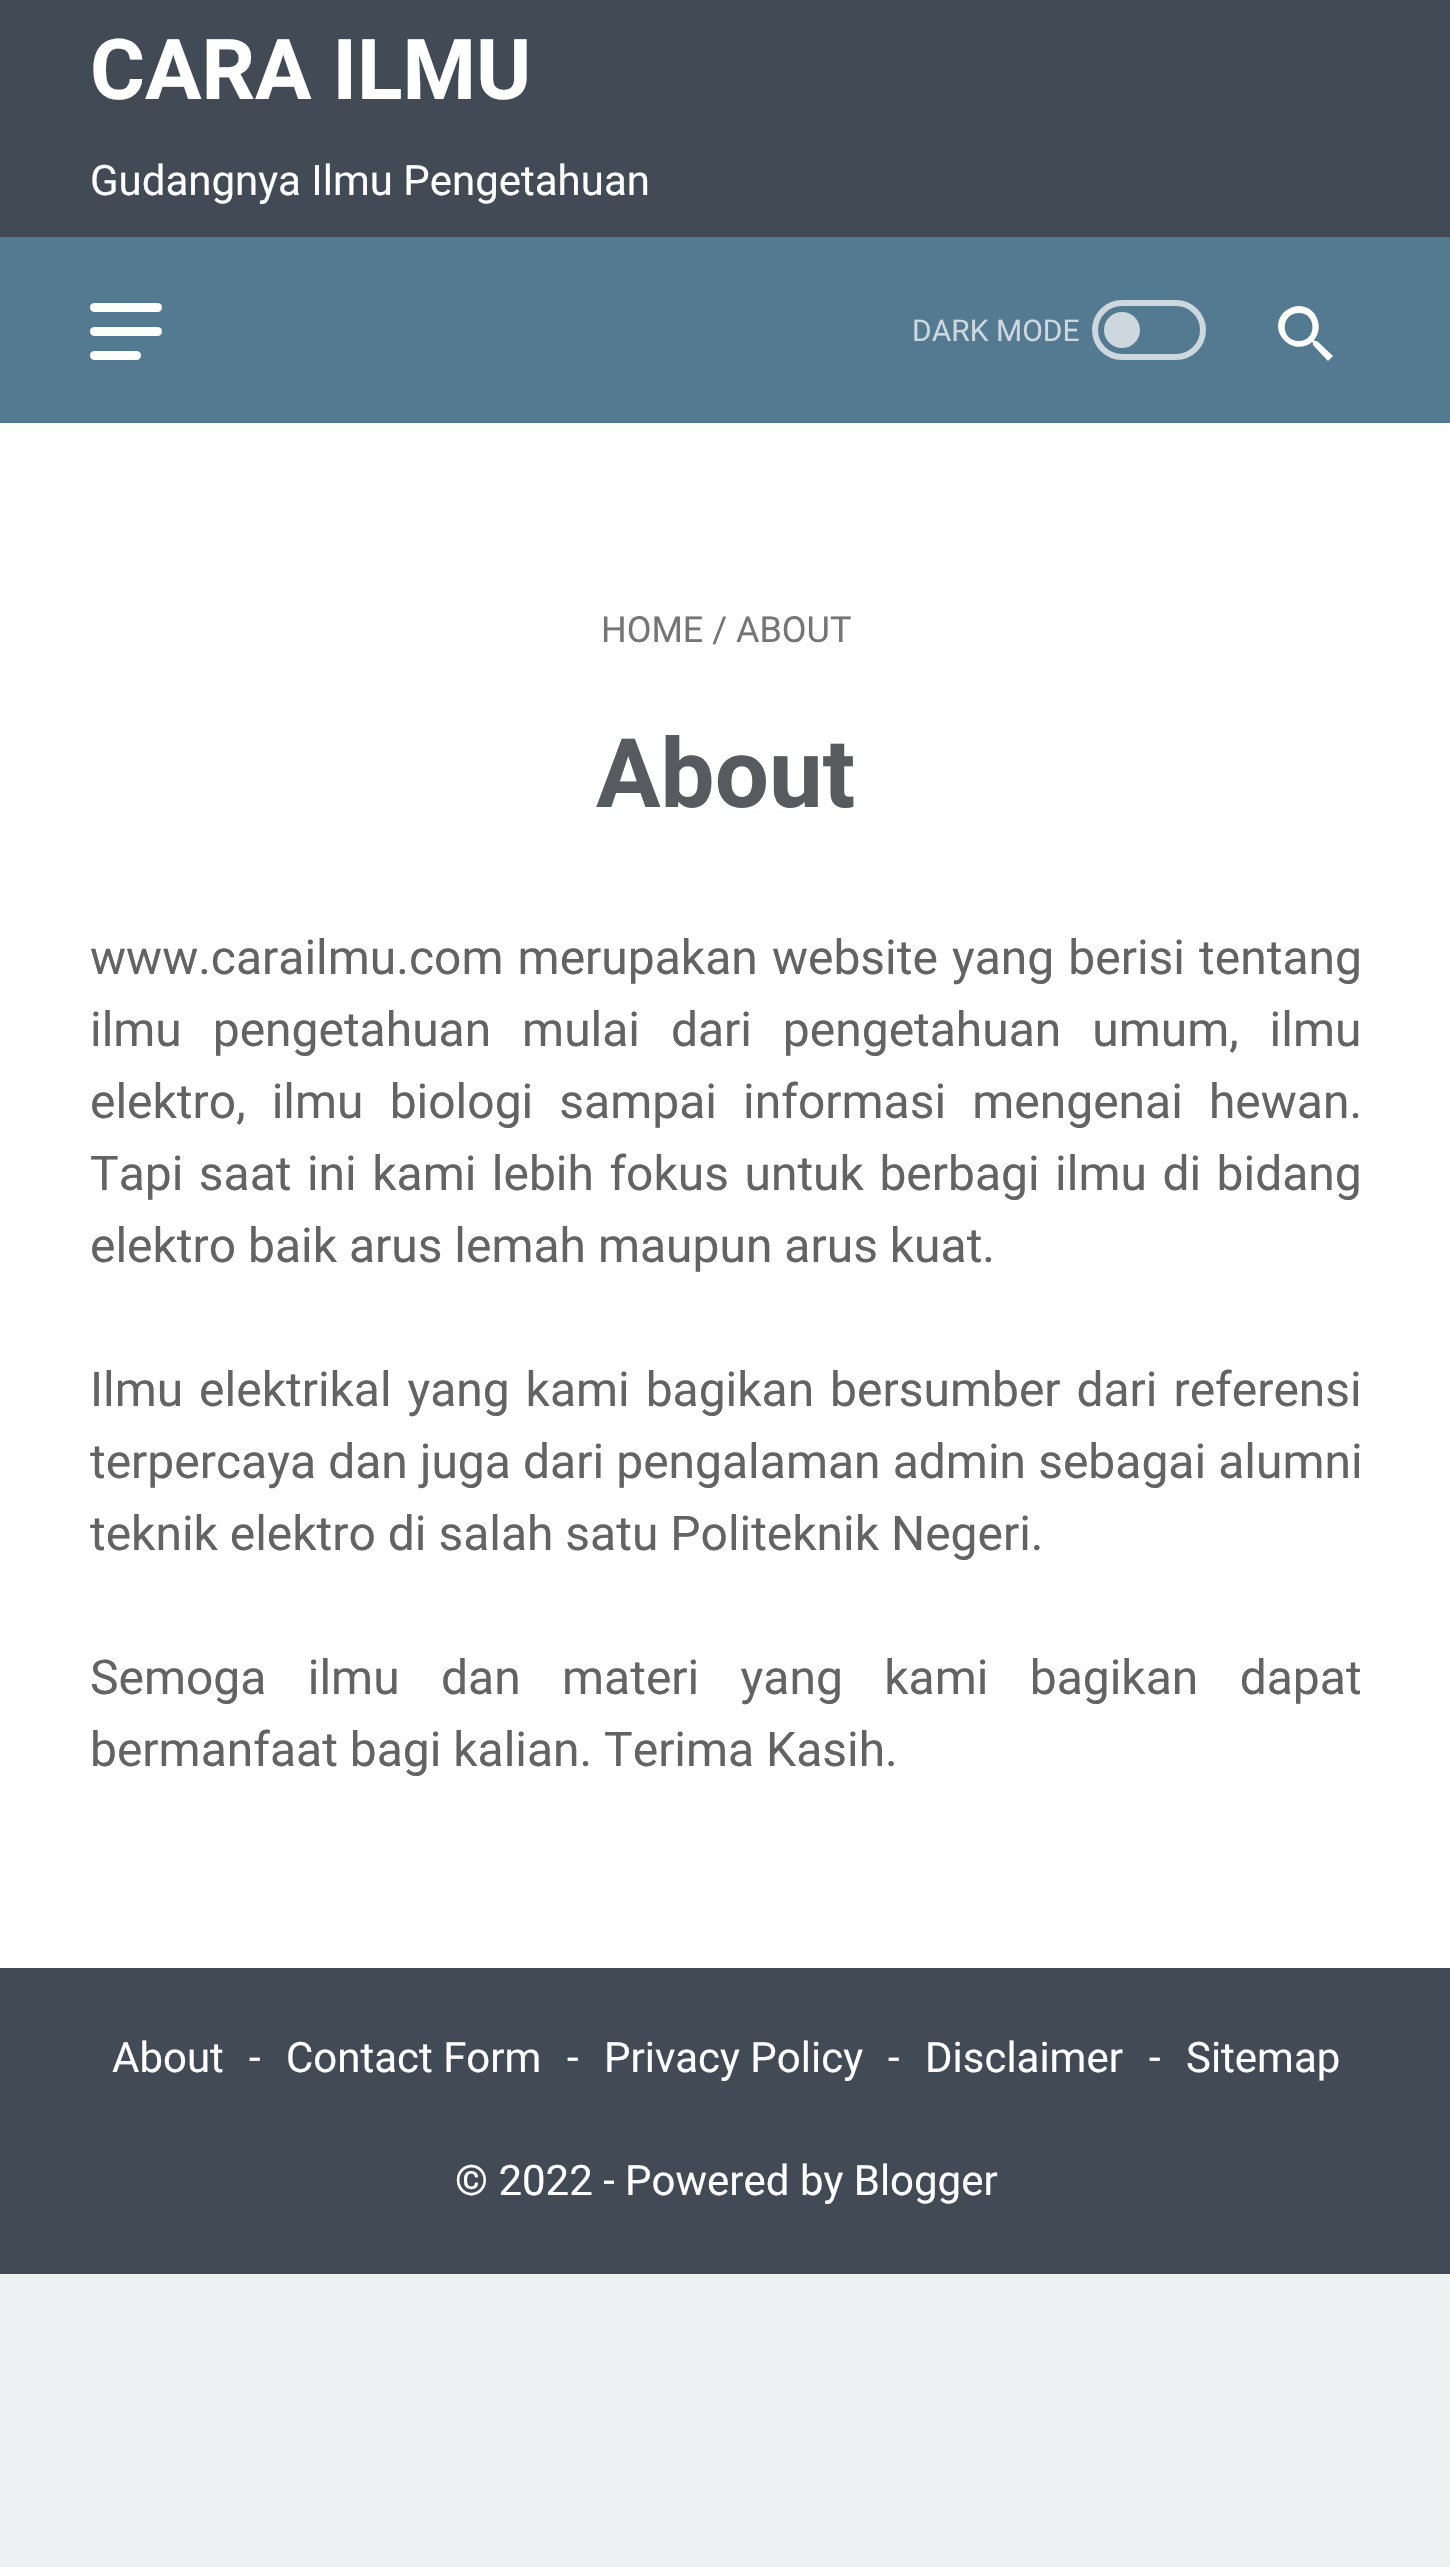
#include "include/core/SkBlurTypes.h"
#include "include/core/SkCanvas.h"
#include "include/core/SkData.h"
#include "include/core/SkFont.h"
#include "include/core/SkFontMgr.h"
#include "include/core/SkImage.h"
#include "include/core/SkMaskFilter.h"
#include "include/core/SkPaint.h"
#include "include/core/SkPathBuilder.h"
#include "include/core/SkTextBlob.h"
#include "include/effects/SkDashPathEffect.h"
#include "include/effects/SkGradientShader.h"
#include "include/utils/SkParsePath.h"

extern sk_sp<SkFontMgr> fontMgr;

void draw(SkCanvas* canvas) {
    SkPaint p;
    p.setAntiAlias(true);
    auto font = [&](const char* family, int weight, float size, bool italic = false) {
        SkFontStyle style(weight, SkFontStyle::kNormal_Width,
            italic ? SkFontStyle::kItalic_Slant : SkFontStyle::kUpright_Slant);
        SkFont result(fontMgr->matchFamilyStyle(family, style), size);
        result.setSubpixel(true);
        return result;
    };
    auto drawTracked = [&](const char* s, float x, float y, const SkFont& font, const SkPaint& ink, float letter, float word) {
        std::vector<SkGlyphID> glyphs(font.countText(s, strlen(s), SkTextEncoding::kUTF8));
        std::vector<float> xs(glyphs.size());
        font.textToGlyphs(s, strlen(s), SkTextEncoding::kUTF8, glyphs);
        font.getXPos(glyphs, xs, x);
        float extra = 0;
        for (size_t i = 0; i < glyphs.size(); i++) {
            xs[i] += extra;
            extra += letter + word * (glyphs[i] == font.unicharToGlyph(' '));
        }
        canvas->drawTextBlob(SkTextBlob::MakeFromPosHGlyphs(glyphs, xs, y, font), 0, 0, ink);
    };
    canvas->clear(0xFFEDF1F2);
    p.setColor(0xFF424A56);
    canvas->drawRect(SkRect::MakeLTRB(0, 0, 1450, 237), p);
    auto font1 = font("Roboto", 700, 84);
    p.setColor(0xFFFFFFFF);
    canvas->drawString("CARA ILMU", 90, 99, font1, p);
    auto font2 = font("Roboto", 400, 42);
    canvas->drawString("Gudangnya Ilmu Pengetahuan", 90, 195, font2, p);
    p.setColor(0xFF547A92);
    canvas->drawRect(SkRect::MakeLTRB(0, 237, 1450, 423), p);
    p.setColor(0xFFFFFFFF);
    canvas->drawRoundRect(SkRect::MakeLTRB(90, 303, 162, 312), 4.5f, 4.5f, p);
    canvas->drawRoundRect(SkRect::MakeLTRB(90, 327, 162, 336), 4.5f, 4.5f, p);
    canvas->drawRoundRect(SkRect::MakeLTRB(90, 351, 141, 360), 4.5f, 4.5f, p);
    auto font3 = font("Roboto", 400, 30);
    p.setColor(0xFFCCD7DE);
    canvas->drawString("DARK MODE", 912, 341, font3, p);
    p.setStyle(SkPaint::kStroke_Style);
    p.setStrokeWidth(6);
    canvas->drawRoundRect(SkRect::MakeLTRB(1095, 303, 1203, 357), 27, 27, p);
    p.setStyle(SkPaint::kFill_Style);
    canvas->drawCircle(1122, 330, 18, p);
    p.setColor(0xFFFFFFFF);
    canvas->drawPath(SkPathBuilder().moveTo(1299, 306).cubicTo(1316, 306, 1325, 327, 1314, 340).lineTo(1315, 341).lineTo(1317, 341).lineTo(1333, 356).lineTo(1328, 361).lineTo(1313, 345).lineTo(1313, 343).lineTo(1312, 342).cubicTo(1293, 358, 1266, 331, 1284, 312).cubicTo(1288, 309, 1293, 306, 1299, 306).moveTo(1299, 313).cubicTo(1280, 313, 1280, 341, 1299, 341).cubicTo(1317, 341, 1317, 313, 1299, 313).close().detach(), p);
    canvas->drawRect(SkRect::MakeLTRB(0, 423, 1450, 1968), p);
    auto font4 = font("Roboto", 400, 36);
    p.setColor(0xFF757575);
    canvas->drawString("HOME / ABOUT", 601, 642, font4, p);
    auto font5 = font("Roboto", 700, 96);
    p.setColor(0xFF575A5F);
    canvas->drawString("About", 596, 807, font5, p);
    auto font6 = font("Roboto", 400, 48);
    p.setColor(0xFF636363);
    drawTracked("www.carailmu.com merupakan website yang berisi tentang", 90, 974, font6, p, 0, 2.25f);
    drawTracked("ilmu pengetahuan mulai dari pengetahuan umum, ilmu", 90, 1046, font6, p, 0, 19);
    drawTracked("elektro, ilmu biologi sampai informasi mengenai hewan.", 90, 1118, font6, p, 0, 14.25f);
    drawTracked("Tapi saat ini kami lebih fokus untuk berbagi ilmu di bidang", 90, 1190, font6, p, 0, 3.6f);
    canvas->drawString("elektro baik arus lemah maupun arus kuat.", 90, 1262, font6, p);
    drawTracked("Ilmu elektrikal yang kami bagikan bersumber dari referensi", 90, 1406, font6, p, 0, 4);
    drawTracked("terpercaya dan juga dari pengalaman admin sebagai alumni", 90, 1478, font6, p, 0, 0.25f);
    canvas->drawString("teknik elektro di salah satu Politeknik Negeri.", 90, 1550, font6, p);
    drawTracked("Semoga ilmu dan materi yang kami bagikan dapat", 90, 1694, font6, p, 0, 29.5f);
    canvas->drawString("bermanfaat bagi kalian. Terima Kasih.", 90, 1766, font6, p);
    p.setColor(0xFF424A56);
    canvas->drawRect(SkRect::MakeLTRB(0, 1968, 1450, 2274), p);
    p.setColor(0xFFFFFFFF);
    {
        const struct { const char* s; float x, y; } items[] = {
            {"About", 112, 2072},
            {"-", 249, 2072},
            {"Contact Form", 286, 2072},
            {"-", 567, 2072},
            {"Privacy Policy", 604, 2072},
            {"-", 888, 2072},
            {"Disclaimer", 925, 2072},
            {"-", 1149, 2072},
            {"Sitemap", 1186, 2072},
            {"© 2022 - Powered by Blogger", 455, 2195},
        };
        for (auto [s, x, y] : items) {
            canvas->drawString(s, x, y, font2, p);
        }
    }
}
